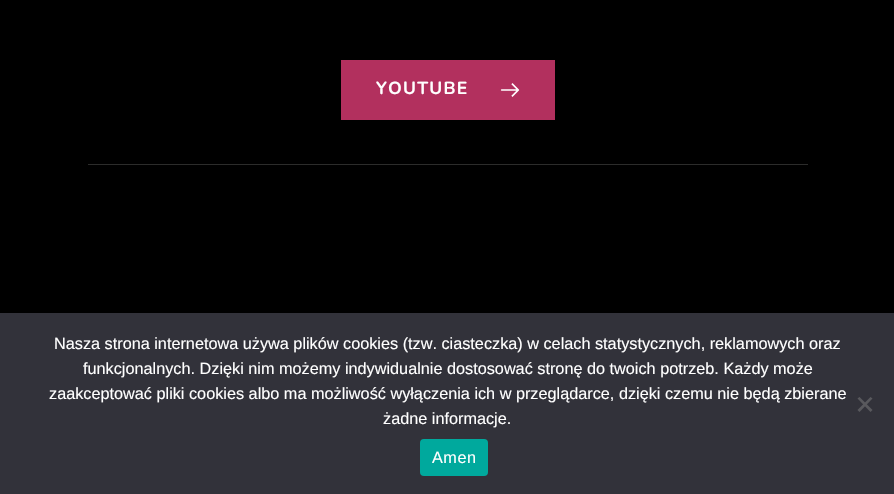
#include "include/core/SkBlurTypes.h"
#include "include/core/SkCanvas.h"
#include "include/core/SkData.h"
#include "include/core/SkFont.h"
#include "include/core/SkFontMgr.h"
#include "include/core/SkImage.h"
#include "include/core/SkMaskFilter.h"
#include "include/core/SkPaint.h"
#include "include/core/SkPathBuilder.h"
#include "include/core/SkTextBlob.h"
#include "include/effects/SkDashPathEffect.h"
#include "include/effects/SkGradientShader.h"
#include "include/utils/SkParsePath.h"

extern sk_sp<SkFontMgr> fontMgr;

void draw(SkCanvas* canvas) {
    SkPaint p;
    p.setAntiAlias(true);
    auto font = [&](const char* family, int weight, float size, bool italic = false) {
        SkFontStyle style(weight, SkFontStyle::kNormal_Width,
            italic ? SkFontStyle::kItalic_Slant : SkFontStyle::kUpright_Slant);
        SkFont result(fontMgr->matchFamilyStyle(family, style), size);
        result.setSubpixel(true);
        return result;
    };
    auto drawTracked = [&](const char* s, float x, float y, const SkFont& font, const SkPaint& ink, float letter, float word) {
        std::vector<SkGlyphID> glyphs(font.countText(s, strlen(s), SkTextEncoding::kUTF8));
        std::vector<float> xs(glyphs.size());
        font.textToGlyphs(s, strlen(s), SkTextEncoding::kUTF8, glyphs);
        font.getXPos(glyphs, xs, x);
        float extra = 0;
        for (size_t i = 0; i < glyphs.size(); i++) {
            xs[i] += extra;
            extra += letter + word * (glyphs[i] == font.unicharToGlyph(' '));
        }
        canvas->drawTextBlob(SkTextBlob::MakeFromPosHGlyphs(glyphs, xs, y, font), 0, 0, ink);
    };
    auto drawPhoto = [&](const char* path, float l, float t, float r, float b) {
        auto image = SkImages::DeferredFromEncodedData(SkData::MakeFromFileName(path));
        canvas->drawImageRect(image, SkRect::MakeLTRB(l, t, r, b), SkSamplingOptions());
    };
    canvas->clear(0xFF000000);
    p.setColor(0xFFB2305E);
    canvas->drawRect(SkRect::MakeLTRB(341, 60, 555, 120), p);
    auto font1 = font("Nunito", 200, 17.5f);
    p.setColor(0xFFFFFFFF);
    drawTracked("YOUTUBE", 376, 94, font1, p, 1.25f, 0);
    drawPhoto("media/1.png", 500, 83, 520, 97);
    p.setColor(0xFF2C2C2B);
    canvas->drawRect(SkRect::MakeLTRB(88, 164, 808, 165), p);
    p.setColor(0xFF32323A);
    canvas->drawRect(SkRect::MakeLTRB(0, 313, 894, 494), p);
    auto font2 = font("Liberation Sans", 400, 16.25f);
    p.setColor(0xFFFFFFFF);
    {
        const struct { const char* s; float x, y; } items[] = {
            {"Nasza strona internetowa używa plików cookies (tzw. ciasteczka) w celach statystycznych, reklamowych oraz", 54, 349},
            {"funkcjonalnych. Dzięki nim możemy indywidualnie dostosować stronę do twoich potrzeb. Każdy może", 83, 374},
            {"zaakceptować pliki cookies albo ma możliwość wyłączenia ich w przeglądarce, dzięki czemu nie będą zbierane", 49, 399},
            {"żadne informacje.", 383, 424},
        };
        for (auto [s, x, y] : items) {
            canvas->drawString(s, x, y, font2, p);
        }
    }
    p.setColor(0xFF59595D);
    canvas->drawPath(SkPathBuilder().moveTo(870.5f, 397).lineTo(872.5f, 398.5f).lineTo(859.5f, 412).lineTo(857.5f, 410).close().detach(), p);
    canvas->drawPath(SkPathBuilder().moveTo(857.5f, 398.5f).lineTo(859.5f, 397).lineTo(872.5f, 410).lineTo(870.5f, 412).close().detach(), p);
    p.setColor(0xFF00A99D);
    canvas->drawRoundRect(SkRect::MakeLTRB(420, 439, 488, 476), 4, 4, p);
    p.setColor(0xFFFFFFFF);
    drawTracked("Amen", 432, 463, font2, p, 0.5f, 0);
}
